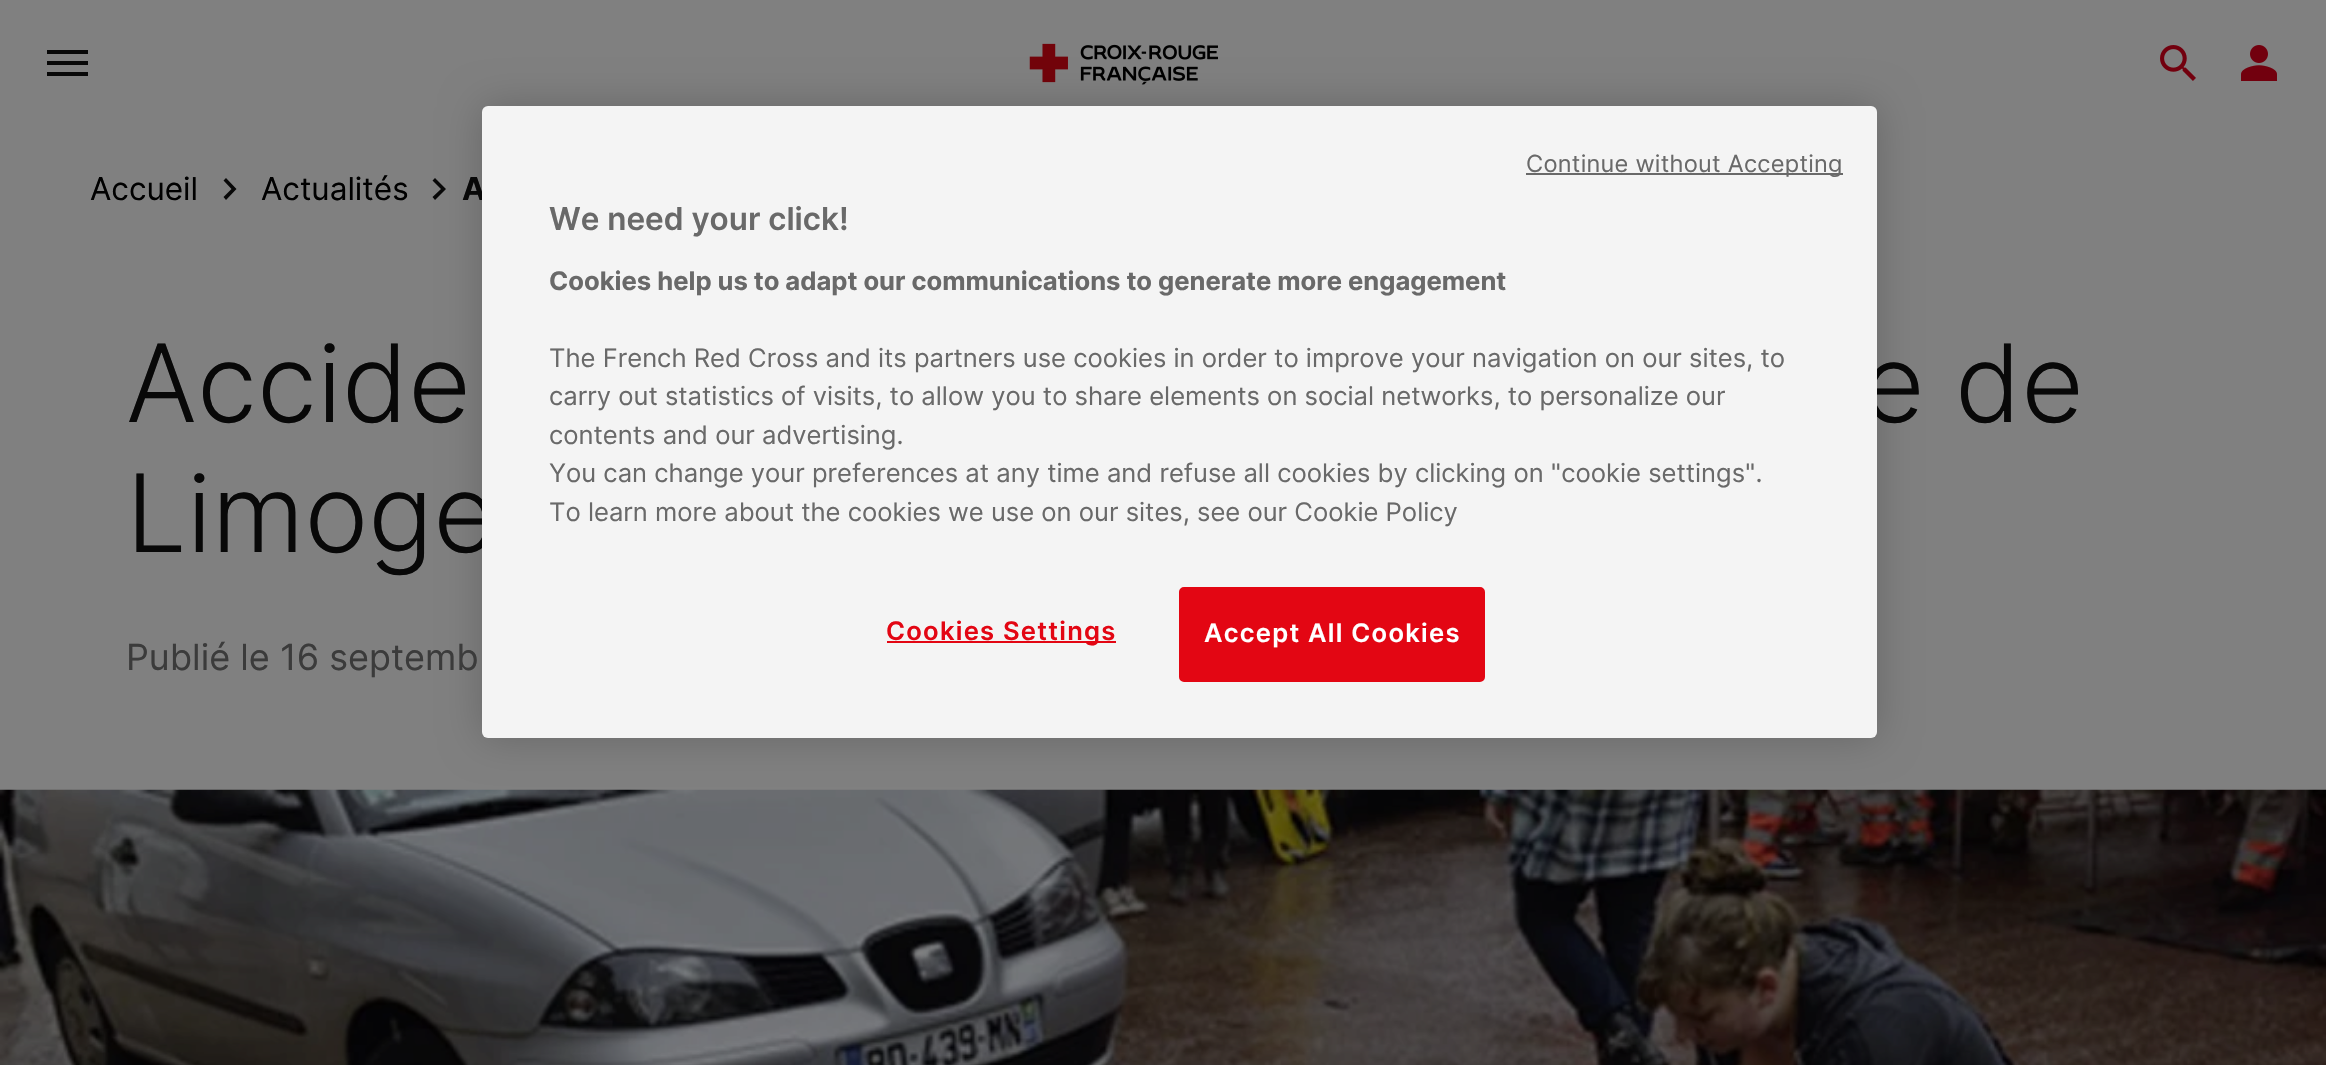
#include "include/core/SkBlurTypes.h"
#include "include/core/SkCanvas.h"
#include "include/core/SkData.h"
#include "include/core/SkFont.h"
#include "include/core/SkFontMgr.h"
#include "include/core/SkImage.h"
#include "include/core/SkMaskFilter.h"
#include "include/core/SkPaint.h"
#include "include/core/SkPathBuilder.h"
#include "include/core/SkTextBlob.h"
#include "include/effects/SkDashPathEffect.h"
#include "include/effects/SkGradientShader.h"
#include "include/utils/SkParsePath.h"

extern sk_sp<SkFontMgr> fontMgr;

void draw(SkCanvas* canvas) {
    SkPaint p;
    p.setAntiAlias(true);
    auto font = [&](const char* family, int weight, float size, bool italic = false) {
        SkFontStyle style(weight, SkFontStyle::kNormal_Width,
            italic ? SkFontStyle::kItalic_Slant : SkFontStyle::kUpright_Slant);
        SkFont result(fontMgr->matchFamilyStyle(family, style), size);
        result.setSubpixel(true);
        return result;
    };
    auto drawTracked = [&](const char* s, float x, float y, const SkFont& font, const SkPaint& ink, float letter, float word) {
        std::vector<SkGlyphID> glyphs(font.countText(s, strlen(s), SkTextEncoding::kUTF8));
        std::vector<float> xs(glyphs.size());
        font.textToGlyphs(s, strlen(s), SkTextEncoding::kUTF8, glyphs);
        font.getXPos(glyphs, xs, x);
        float extra = 0;
        for (size_t i = 0; i < glyphs.size(); i++) {
            xs[i] += extra;
            extra += letter + word * (glyphs[i] == font.unicharToGlyph(' '));
        }
        canvas->drawTextBlob(SkTextBlob::MakeFromPosHGlyphs(glyphs, xs, y, font), 0, 0, ink);
    };
    auto drawPhoto = [&](const char* path, float l, float t, float r, float b) {
        auto image = SkImages::DeferredFromEncodedData(SkData::MakeFromFileName(path));
        canvas->drawImageRect(image, SkRect::MakeLTRB(l, t, r, b), SkSamplingOptions());
    };
    canvas->clear(0xFF808080);
    drawPhoto("media/1.png", 1029, 43, 1218, 85);
    p.setColor(0xFF080808);
    canvas->drawPath(SkPathBuilder().moveTo(432.5f, 197).lineTo(441, 189).lineTo(432.5f, 180.5f).lineTo(435, 178).lineTo(446, 189).lineTo(435, 200).close().detach(), p);
    drawPhoto("media/4.png", 0, 789, 2326, 1065);
    p.setColor(0x33000000);
    p.setMaskFilter(SkMaskFilter::MakeBlur(kNormal_SkBlurStyle, 20));
    canvas->drawRoundRect(SkRect::MakeLTRB(482, 106, 1877, 738), 6, 6, p);
    p.setMaskFilter(nullptr);
    auto font1 = font("Inter", 700, 31.5f);
    p.setColor(0xFF080808);
    canvas->drawString("A", 462, 200, font1, p);
    auto font2 = font("Inter", 300, 108);
    canvas->drawString("e de", 1862, 422, font2, p);
    canvas->drawString("Limoge", 126, 552, font2, p);
    p.setColor(0xFFF4F4F4);
    canvas->drawRoundRect(SkRect::MakeLTRB(482, 106, 1877, 738), 6, 6, p);
    p.setColor(0xFF696969);
    canvas->drawRect(SkRect::MakeLTRB(1526, 173, 1843, 175), p);
    auto font3 = font("Inter", 400, 23.6f);
    drawTracked("Continue without Accepting", 1526, 172, font3, p, 0.25f, 0);
    auto font4 = font("Inter", 600, 31.5f);
    canvas->drawString("We need your click!", 549, 230, font4, p);
    auto font5 = font("Inter", 700, 25.6f);
    canvas->drawString("Cookies help us to adapt our communications to generate more engagement", 549, 290, font5, p);
    auto font6 = font("Inter", 400, 25.6f);
    {
        const struct { const char* s; float x, y; } items[] = {
            {"The French Red Cross and its partners use cookies in order to improve your navigation on our sites, to", 549, 367},
            {"carry out statistics of visits, to allow you to share elements on social networks, to personalize our", 549, 405},
            {"contents and our advertising.", 549, 444},
            {"You can change your preferences at any time and refuse all cookies by clicking on \"cookie settings\".", 549, 482},
            {"To learn more about the cookies we use on our sites, see our Cookie Policy", 549, 521},
        };
        for (auto [s, x, y] : items) {
            canvas->drawString(s, x, y, font6, p);
        }
    }
    p.setColor(0xFFE30613);
    canvas->drawRect(SkRect::MakeLTRB(887, 641, 1116, 643), p);
    auto font7 = font("Inter", 600, 25.6f);
    drawTracked("Cookies Settings", 886, 640, font7, p, 1.25f, 0);
    canvas->drawRoundRect(SkRect::MakeLTRB(1180, 588, 1484, 681), 4, 4, p);
    p.setStyle(SkPaint::kStroke_Style);
    p.setStrokeWidth(2);
    canvas->drawRoundRect(SkRect::MakeLTRB(1180, 588, 1484, 681), 4, 4, p);
    p.setStyle(SkPaint::kFill_Style);
    p.setColor(0xFFFFFFFF);
    drawTracked("Accept All Cookies", 1204, 642, font7, p, 1.25f, 0);
    p.setColor(0xFF080808);
    canvas->drawPath(SkPathBuilder().moveTo(47, 50).lineTo(88, 50).lineTo(88, 54).lineTo(47, 54).close().moveTo(47, 61).lineTo(88, 61).lineTo(88, 65).lineTo(47, 65).close().moveTo(47, 72).lineTo(88, 72).lineTo(88, 76).lineTo(47, 76).close().detach(), p);
    drawPhoto("media/2.png", 2160, 45, 2196, 81);
    drawPhoto("media/3.png", 2241, 45, 2277, 81);
    auto font8 = font("Inter", 400, 31.5f);
    p.setColor(0xFF000000);
    canvas->drawString("Accueil", 90, 200, font8, p);
    p.setColor(0xFF080808);
    canvas->drawPath(SkPathBuilder().moveTo(223.5f, 197).lineTo(231.5f, 189).lineTo(223.5f, 180.5f).lineTo(226, 178).lineTo(236.5f, 189).lineTo(226, 200).close().detach(), p);
    p.setColor(0xFF000000);
    canvas->drawString("Actualités", 261, 200, font8, p);
    p.setColor(0xFF080808);
    canvas->drawString("Accide", 126, 422, font2, p);
    auto font9 = font("Inter", 400, 36);
    p.setColor(0xFF3B3B3B);
    canvas->drawString("Publié le 16 septemb", 126, 670, font9, p);
}
